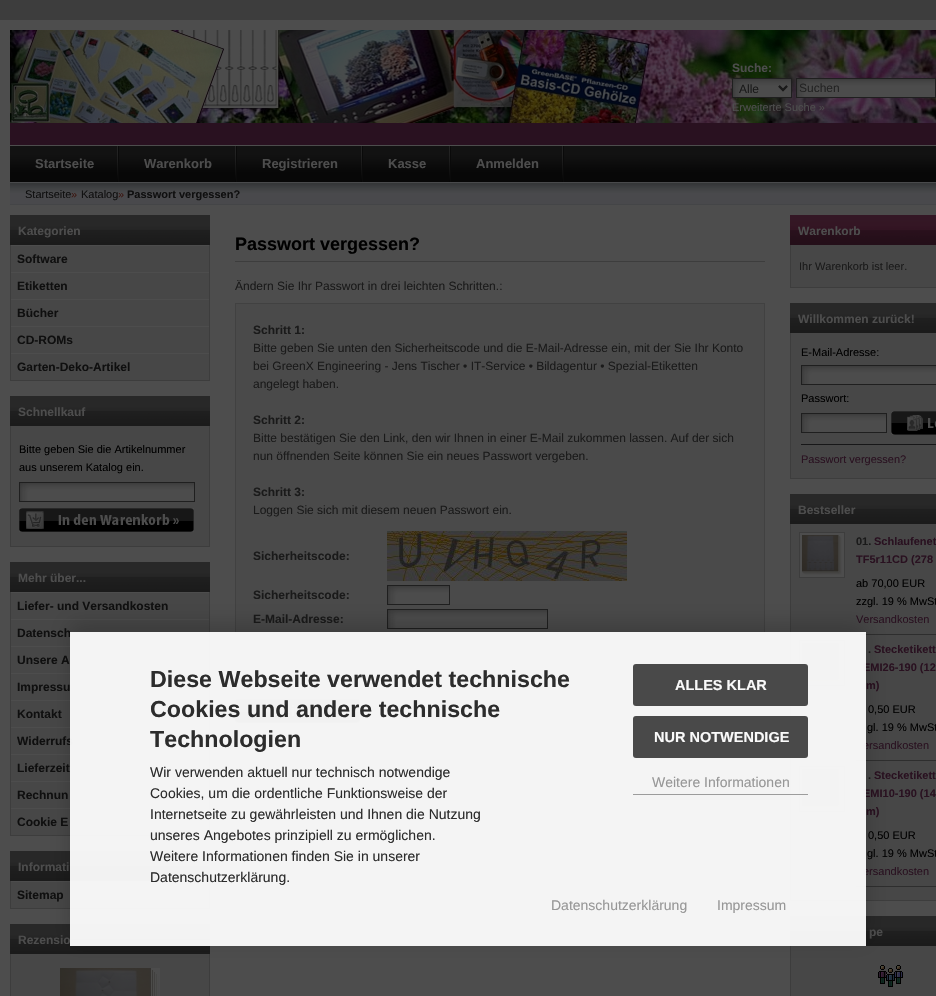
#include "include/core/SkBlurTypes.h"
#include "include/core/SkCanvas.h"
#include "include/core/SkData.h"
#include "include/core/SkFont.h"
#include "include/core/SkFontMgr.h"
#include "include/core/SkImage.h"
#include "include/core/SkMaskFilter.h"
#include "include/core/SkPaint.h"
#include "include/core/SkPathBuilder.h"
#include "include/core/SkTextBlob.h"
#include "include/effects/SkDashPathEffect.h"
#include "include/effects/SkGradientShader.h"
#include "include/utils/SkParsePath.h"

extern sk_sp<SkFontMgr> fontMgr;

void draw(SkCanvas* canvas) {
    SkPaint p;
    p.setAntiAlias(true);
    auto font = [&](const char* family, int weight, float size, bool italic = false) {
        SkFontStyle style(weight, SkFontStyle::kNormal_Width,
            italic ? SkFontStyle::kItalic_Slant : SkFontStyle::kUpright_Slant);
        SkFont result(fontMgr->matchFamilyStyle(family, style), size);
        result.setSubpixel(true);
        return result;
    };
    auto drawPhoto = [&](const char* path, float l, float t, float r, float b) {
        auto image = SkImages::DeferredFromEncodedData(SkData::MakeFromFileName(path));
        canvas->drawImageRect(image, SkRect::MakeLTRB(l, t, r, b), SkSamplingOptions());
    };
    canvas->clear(0xFFFFFFFF);
    drawPhoto("media/1.png", 0, 0, 936, 20);
    {
        const struct { float l, t, r, b; SkColor color; } items[] = {
            {10, 205, 936, 996, 0xFF4D4D4D},
            {0, 20, 10, 996, 0xFF4D4D4D},
            {10, 123, 936, 145, 0xFF291120},
        };
        for (auto [l, t, r, b, color] : items) {
            p.setColor(color);
            canvas->drawRect(SkRect::MakeLTRB(l, t, r, b), p);
        }
    }
    drawPhoto("media/2.png", 10, 30, 936, 123);
    p.setColor(0xFF4D4D4D);
    canvas->drawRect(SkRect::MakeLTRB(10, 20, 936, 30), p);
    canvas->drawRect(SkRect::MakeLTRB(10, 145, 936, 146), p);
    auto font1 = font("Liberation Sans", 700, 12);
    canvas->drawString("Suche:", 732, 72, font1, p);
    drawPhoto("media/3.png", 733, 79, 791, 97);
    p.setStyle(SkPaint::kStroke_Style);
    p.setStrokeWidth(1);
    p.setColor(0xFF1F1F1F);
    canvas->drawRect(SkRect::MakeLTRB(732.5f, 78.5f, 791.5f, 97.5f), p);
    p.setStrokeWidth(2);
    p.setColor(0xFF1A1A1A);
    canvas->drawPath(SkPathBuilder().moveTo(779, 86).lineTo(783, 90).lineTo(787, 86).detach(), p);
    auto font2 = font("Liberation Sans", 400, 12);
    p.setStyle(SkPaint::kFill_Style);
    canvas->drawString("Alle", 739, 93, font2, p);
    drawPhoto("media/4.png", 797, 79, 935, 97);
    p.setStyle(SkPaint::kStroke_Style);
    p.setStrokeWidth(1);
    p.setColor(0xFF1F1F1F);
    canvas->drawRect(SkRect::MakeLTRB(796.5f, 78.5f, 935.5f, 97.5f), p);
    p.setStyle(SkPaint::kFill_Style);
    p.setColor(0xFF232323);
    canvas->drawString("Suchen", 799, 92, font2, p);
    auto font3 = font("Liberation Sans", 400, 11);
    p.setColor(0xFF4D4D4D);
    canvas->drawString("Erweiterte Suche »", 732, 111, font3, p);
    drawPhoto("media/5.png", 10, 146, 936, 182);
    drawPhoto("media/6.png", 117, 146, 119, 182);
    auto font4 = font("Liberation Sans", 700, 13);
    canvas->drawString("Startseite", 35, 168, font4, p);
    drawPhoto("media/6.png", 235, 146, 237, 182);
    canvas->drawString("Warenkorb", 144, 168, font4, p);
    drawPhoto("media/6.png", 361, 146, 363, 182);
    canvas->drawString("Registrieren", 262, 168, font4, p);
    drawPhoto("media/6.png", 449, 146, 451, 182);
    canvas->drawString("Kasse", 388, 168, font4, p);
    drawPhoto("media/6.png", 562, 146, 564, 182);
    canvas->drawString("Anmelden", 476, 168, font4, p);
    drawPhoto("media/7.png", 10, 182, 936, 205);
    p.setColor(0xFF0F0F0F);
    canvas->drawString("Startseite", 25, 198, font3, p);
    p.setColor(0xFF3B1610);
    canvas->drawString("»", 71, 198, font3, p);
    p.setColor(0xFF0F0F0F);
    canvas->drawString("Katalog", 81, 198, font3, p);
    p.setColor(0xFF3B1610);
    canvas->drawString("»", 118, 198, font3, p);
    auto font5 = font("Liberation Sans", 700, 11);
    p.setColor(0xFF0F0F0F);
    canvas->drawString("Passwort vergessen?", 127, 198, font5, p);
    p.setColor(0xFF282828);
    canvas->drawRect(SkRect::MakeLTRB(10, 215, 210, 226), p);
    drawPhoto("media/8.png", 10, 226, 210, 245);
    p.setColor(0xFF4D4D4D);
    canvas->drawString("Kategorien", 18, 235, font1, p);
    {
        const struct { float l, t, r, b; SkColor color; } items[] = {
            {11, 246, 209, 380, 0xFF474747},
            {209, 245, 210, 381, 0xFF3D3D3D},
            {10, 380, 210, 381, 0xFF3D3D3D},
            {10, 245, 11, 381, 0xFF3D3D3D},
        };
        for (auto [l, t, r, b, color] : items) {
            p.setColor(color);
            canvas->drawRect(SkRect::MakeLTRB(l, t, r, b), p);
        }
    }
    p.setColor(0xFF0F0F0F);
    canvas->drawString("Software", 17, 263, font1, p);
    p.setColor(0xFF4D4D4D);
    canvas->drawRect(SkRect::MakeLTRB(11, 272, 209, 273), p);
    p.setColor(0xFF0F0F0F);
    canvas->drawString("Etiketten", 17, 290, font1, p);
    p.setColor(0xFF4D4D4D);
    canvas->drawRect(SkRect::MakeLTRB(11, 299, 209, 300), p);
    p.setColor(0xFF0F0F0F);
    canvas->drawString("Bücher", 17, 317, font1, p);
    p.setColor(0xFF4D4D4D);
    canvas->drawRect(SkRect::MakeLTRB(11, 326, 209, 327), p);
    p.setColor(0xFF0F0F0F);
    canvas->drawString("CD-ROMs", 17, 344, font1, p);
    p.setColor(0xFF4D4D4D);
    canvas->drawRect(SkRect::MakeLTRB(11, 353, 209, 354), p);
    p.setColor(0xFF0F0F0F);
    canvas->drawString("Garten-Deko-Artikel", 17, 371, font1, p);
    p.setColor(0xFF282828);
    canvas->drawRect(SkRect::MakeLTRB(10, 396, 210, 407), p);
    drawPhoto("media/8.png", 10, 407, 210, 426);
    p.setColor(0xFF4D4D4D);
    canvas->drawString("Schnellkauf", 18, 416, font1, p);
    {
        const struct { float l, t, r, b; SkColor color; } items[] = {
            {11, 426, 209, 546, 0xFF474747},
            {209, 426, 210, 547, 0xFF3D3D3D},
            {10, 546, 210, 547, 0xFF3D3D3D},
            {10, 426, 11, 547, 0xFF3D3D3D},
        };
        for (auto [l, t, r, b, color] : items) {
            p.setColor(color);
            canvas->drawRect(SkRect::MakeLTRB(l, t, r, b), p);
        }
    }
    p.setColor(0xFF000000);
    canvas->drawString("Bitte geben Sie die Artikelnummer", 19, 453, font3, p);
    canvas->drawString("aus unserem Katalog ein.", 19, 471, font3, p);
    drawPhoto("media/9.png", 20, 483, 194, 501);
    p.setStyle(SkPaint::kStroke_Style);
    p.setColor(0xFF1F1F1F);
    canvas->drawRect(SkRect::MakeLTRB(19.5f, 482.5f, 194.5f, 501.5f), p);
    drawPhoto("media/10.png", 19, 508, 194, 532);
    p.setStyle(SkPaint::kFill_Style);
    p.setColor(0xFF282828);
    canvas->drawRect(SkRect::MakeLTRB(10, 562, 210, 573), p);
    drawPhoto("media/8.png", 10, 573, 210, 592);
    p.setColor(0xFF4D4D4D);
    canvas->drawString("Mehr über...", 18, 582, font1, p);
    {
        const struct { float l, t, r, b; SkColor color; } items[] = {
            {11, 593, 209, 835, 0xFF474747},
            {209, 592, 210, 836, 0xFF3D3D3D},
            {10, 835, 210, 836, 0xFF3D3D3D},
            {10, 592, 11, 836, 0xFF3D3D3D},
        };
        for (auto [l, t, r, b, color] : items) {
            p.setColor(color);
            canvas->drawRect(SkRect::MakeLTRB(l, t, r, b), p);
        }
    }
    p.setColor(0xFF0F0F0F);
    canvas->drawString("Liefer- und Versandkosten", 17, 610, font1, p);
    p.setColor(0xFF4D4D4D);
    canvas->drawRect(SkRect::MakeLTRB(11, 619, 209, 620), p);
    p.setColor(0xFF0F0F0F);
    canvas->drawString("Datensch", 17, 637, font1, p);
    p.setColor(0xFF4D4D4D);
    canvas->drawRect(SkRect::MakeLTRB(11, 646, 209, 647), p);
    p.setColor(0xFF0F0F0F);
    canvas->drawString("Unsere A", 17, 664, font1, p);
    p.setColor(0xFF4D4D4D);
    canvas->drawRect(SkRect::MakeLTRB(11, 673, 209, 674), p);
    p.setColor(0xFF0F0F0F);
    canvas->drawString("Impressu", 17, 691, font1, p);
    p.setColor(0xFF4D4D4D);
    canvas->drawRect(SkRect::MakeLTRB(11, 700, 209, 701), p);
    p.setColor(0xFF0F0F0F);
    canvas->drawString("Kontakt", 17, 718, font1, p);
    p.setColor(0xFF4D4D4D);
    canvas->drawRect(SkRect::MakeLTRB(11, 727, 209, 728), p);
    p.setColor(0xFF0F0F0F);
    canvas->drawString("Widerrufs", 17, 745, font1, p);
    p.setColor(0xFF4D4D4D);
    canvas->drawRect(SkRect::MakeLTRB(11, 754, 209, 755), p);
    p.setColor(0xFF0F0F0F);
    canvas->drawString("Lieferzeit", 17, 772, font1, p);
    p.setColor(0xFF4D4D4D);
    canvas->drawRect(SkRect::MakeLTRB(11, 781, 209, 782), p);
    p.setColor(0xFF0F0F0F);
    canvas->drawString("Rechnun", 17, 799, font1, p);
    p.setColor(0xFF4D4D4D);
    canvas->drawRect(SkRect::MakeLTRB(11, 808, 209, 809), p);
    p.setColor(0xFF0F0F0F);
    canvas->drawString("Cookie E", 17, 826, font1, p);
    p.setColor(0xFF282828);
    canvas->drawRect(SkRect::MakeLTRB(10, 851, 210, 862), p);
    drawPhoto("media/8.png", 10, 862, 210, 881);
    p.setColor(0xFF4D4D4D);
    canvas->drawString("Informati", 18, 871, font1, p);
    {
        const struct { float l, t, r, b; SkColor color; } items[] = {
            {11, 882, 209, 908, 0xFF474747},
            {209, 881, 210, 909, 0xFF3D3D3D},
            {10, 908, 210, 909, 0xFF3D3D3D},
            {10, 881, 11, 909, 0xFF3D3D3D},
        };
        for (auto [l, t, r, b, color] : items) {
            p.setColor(color);
            canvas->drawRect(SkRect::MakeLTRB(l, t, r, b), p);
        }
    }
    p.setColor(0xFF0F0F0F);
    canvas->drawString("Sitemap", 17, 899, font1, p);
    p.setColor(0xFF282828);
    canvas->drawRect(SkRect::MakeLTRB(10, 924, 210, 935), p);
    drawPhoto("media/8.png", 10, 935, 210, 954);
    p.setColor(0xFF4D4D4D);
    canvas->drawString("Rezensio", 18, 944, font1, p);
    {
        const struct { float l, t, r, b; SkColor color; } items[] = {
            {11, 954, 209, 996, 0xFF474747},
            {209, 954, 210, 996, 0xFF3D3D3D},
            {10, 954, 11, 996, 0xFF3D3D3D},
        };
        for (auto [l, t, r, b, color] : items) {
            p.setColor(color);
            canvas->drawRect(SkRect::MakeLTRB(l, t, r, b), p);
        }
    }
    drawPhoto("media/11.png", 60, 968, 160, 996);
    canvas->drawRect(SkRect::MakeLTRB(235, 261, 765, 262), p);
    auto font6 = font("Liberation Sans", 700, 18);
    p.setColor(0xFF000000);
    canvas->drawString("Passwort vergessen?", 235, 250, font6, p);
    p.setColor(0xFF1A1A1A);
    canvas->drawString("Ändern Sie Ihr Passwort in drei leichten Schritten.:", 235, 290, font2, p);
    p.setColor(0xFF4A4A4A);
    canvas->drawRect(SkRect::MakeLTRB(235.5f, 303.5f, 764.5f, 646.5f), p);
    p.setStyle(SkPaint::kStroke_Style);
    p.setColor(0xFF414141);
    canvas->drawRect(SkRect::MakeLTRB(235.5f, 303.5f, 764.5f, 646.5f), p);
    p.setStyle(SkPaint::kFill_Style);
    p.setColor(0xFF1A1A1A);
    canvas->drawString("Schritt 1:", 253, 334, font1, p);
    {
        const struct { const char* s; float x, y; } items[] = {
            {"Bitte geben Sie unten den Sicherheitscode und die E-Mail-Adresse ein, mit der Sie Ihr Konto", 253, 352},
            {"bei GreenX Engineering - Jens Tischer • IT-Service • Bildagentur • Spezial-Etiketten", 253, 370},
            {"angelegt haben.", 253, 388},
        };
        for (auto [s, x, y] : items) {
            canvas->drawString(s, x, y, font2, p);
        }
    }
    canvas->drawString("Schritt 2:", 253, 424, font1, p);
    canvas->drawString("Bitte bestätigen Sie den Link, den wir Ihnen in einer E-Mail zukommen lassen. Auf der sich", 253, 442, font2, p);
    canvas->drawString("nun öffnenden Seite können Sie ein neues Passwort vergeben.", 253, 460, font2, p);
    canvas->drawString("Schritt 3:", 253, 496, font1, p);
    canvas->drawString("Loggen Sie sich mit diesem neuen Passwort ein.", 253, 514, font2, p);
    canvas->drawString("Sicherheitscode:", 253, 560, font1, p);
    drawPhoto("media/12.png", 387, 531, 627, 581);
    canvas->drawString("Sicherheitscode:", 253, 599, font1, p);
    drawPhoto("media/13.png", 388, 586, 449, 604);
    p.setStyle(SkPaint::kStroke_Style);
    p.setColor(0xFF1F1F1F);
    canvas->drawRect(SkRect::MakeLTRB(387.5f, 585.5f, 449.5f, 604.5f), p);
    p.setStyle(SkPaint::kFill_Style);
    p.setColor(0xFF1A1A1A);
    canvas->drawString("E-Mail-Adresse:", 253, 623, font1, p);
    drawPhoto("media/14.png", 388, 610, 547, 628);
    p.setStyle(SkPaint::kStroke_Style);
    p.setColor(0xFF1F1F1F);
    canvas->drawRect(SkRect::MakeLTRB(387.5f, 609.5f, 547.5f, 628.5f), p);
    drawPhoto("media/15.png", 235, 699, 360, 723);
    drawPhoto("media/16.png", 790, 215, 936, 245);
    p.setStyle(SkPaint::kFill_Style);
    p.setColor(0xFF4D4D4D);
    canvas->drawString("Warenkorb", 798, 235, font1, p);
    {
        const struct { float l, t, r, b; SkColor color; } items[] = {
            {791, 245, 936, 287, 0xFF474747},
            {790, 287, 936, 288, 0xFF3D3D3D},
            {790, 245, 791, 288, 0xFF3D3D3D},
        };
        for (auto [l, t, r, b, color] : items) {
            p.setColor(color);
            canvas->drawRect(SkRect::MakeLTRB(l, t, r, b), p);
        }
    }
    p.setColor(0xFF1A1A1A);
    canvas->drawString("Ihr Warenkorb ist leer.", 799, 270, font3, p);
    p.setColor(0xFF282828);
    canvas->drawRect(SkRect::MakeLTRB(790, 303, 936, 314), p);
    drawPhoto("media/17.png", 790, 314, 936, 333);
    p.setColor(0xFF4D4D4D);
    canvas->drawString("Willkommen zurück!", 798, 323, font1, p);
    {
        const struct { float l, t, r, b; SkColor color; } items[] = {
            {791, 333, 936, 478, 0xFF474747},
            {790, 478, 936, 479, 0xFF3D3D3D},
            {790, 333, 791, 479, 0xFF3D3D3D},
        };
        for (auto [l, t, r, b, color] : items) {
            p.setColor(color);
            canvas->drawRect(SkRect::MakeLTRB(l, t, r, b), p);
        }
    }
    p.setColor(0xFF000000);
    canvas->drawString("E-Mail-Adresse:", 801, 356, font3, p);
    drawPhoto("media/18.png", 802, 366, 936, 384);
    p.setStyle(SkPaint::kStroke_Style);
    p.setColor(0xFF1F1F1F);
    canvas->drawRect(SkRect::MakeLTRB(801.5f, 365.5f, 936.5f, 384.5f), p);
    p.setStyle(SkPaint::kFill_Style);
    p.setColor(0xFF000000);
    canvas->drawString("Passwort:", 801, 402, font3, p);
    drawPhoto("media/19.png", 802, 414, 886, 432);
    p.setStyle(SkPaint::kStroke_Style);
    p.setColor(0xFF1F1F1F);
    canvas->drawRect(SkRect::MakeLTRB(801.5f, 413.5f, 886.5f, 432.5f), p);
    drawPhoto("media/20.png", 891, 411, 936, 435);
    p.setStyle(SkPaint::kFill_Style);
    p.setColor(0xFF171718);
    canvas->drawRect(SkRect::MakeLTRB(801, 444, 936, 445), p);
    p.setColor(0xFF291120);
    canvas->drawString("Passwort vergessen?", 801, 463, font3, p);
    p.setColor(0xFF282828);
    canvas->drawRect(SkRect::MakeLTRB(790, 494, 936, 505), p);
    drawPhoto("media/17.png", 790, 505, 936, 524);
    p.setColor(0xFF4D4D4D);
    canvas->drawString("Bestseller", 798, 514, font1, p);
    {
        const struct { float l, t, r, b; SkColor color; } items[] = {
            {791, 524, 936, 900, 0xFF474747},
            {790, 900, 936, 901, 0xFF3D3D3D},
            {790, 524, 791, 901, 0xFF3D3D3D},
        };
        for (auto [l, t, r, b, color] : items) {
            p.setColor(color);
            canvas->drawRect(SkRect::MakeLTRB(l, t, r, b), p);
        }
    }
    p.setColor(0xFF4D4D4D);
    canvas->drawRect(SkRect::MakeLTRB(799.5f, 532.5f, 844.5f, 577.5f), p);
    p.setStyle(SkPaint::kStroke_Style);
    p.setColor(0xFF3D3D3D);
    canvas->drawRect(SkRect::MakeLTRB(799.5f, 532.5f, 844.5f, 577.5f), p);
    drawPhoto("media/21.png", 802, 535, 842, 575);
    p.setStyle(SkPaint::kFill_Style);
    p.setColor(0xFF1A1A1A);
    canvas->drawString("01.", 856, 545, font5, p);
    p.setColor(0xFF291120);
    canvas->drawString("Schlaufenet", 874, 545, font5, p);
    canvas->drawString("TF5r11CD (278", 856, 563, font5, p);
    p.setColor(0xFF000000);
    canvas->drawString("ab 70,00 EUR", 856, 587, font3, p);
    canvas->drawString("zzgl. 19 % MwSt", 856, 605, font3, p);
    p.setColor(0xFF291120);
    canvas->drawString("Versandkosten", 856, 623, font3, p);
    p.setColor(0xFF2E2E2E);
    canvas->drawRect(SkRect::MakeLTRB(856, 634, 936, 635), p);
    p.setColor(0xFF4D4D4D);
    canvas->drawRect(SkRect::MakeLTRB(799.5f, 640.5f, 844.5f, 685.5f), p);
    p.setStyle(SkPaint::kStroke_Style);
    p.setColor(0xFF3D3D3D);
    canvas->drawRect(SkRect::MakeLTRB(799.5f, 640.5f, 844.5f, 685.5f), p);
    drawPhoto("media/22.png", 802, 643, 842, 683);
    p.setStyle(SkPaint::kFill_Style);
    p.setColor(0xFF1A1A1A);
    canvas->drawString(".", 868, 653, font5, p);
    p.setColor(0xFF291120);
    {
        const struct { const char* s; float x, y; } items[] = {
            {"Stecketikett", 874, 653},
            {"EMI26-190 (12", 863, 671},
            {"m)", 866, 689},
        };
        for (auto [s, x, y] : items) {
            canvas->drawString(s, x, y, font5, p);
        }
    }
    p.setColor(0xFF000000);
    canvas->drawString("0,50 EUR", 868, 713, font3, p);
    canvas->drawString("gl. 19 % MwSt", 867, 731, font3, p);
    p.setColor(0xFF291120);
    canvas->drawString("ersandkosten", 863, 749, font3, p);
    p.setColor(0xFF2E2E2E);
    canvas->drawRect(SkRect::MakeLTRB(856, 760, 936, 761), p);
    p.setColor(0xFF4D4D4D);
    canvas->drawRect(SkRect::MakeLTRB(799.5f, 766.5f, 844.5f, 811.5f), p);
    p.setStyle(SkPaint::kStroke_Style);
    p.setColor(0xFF3D3D3D);
    canvas->drawRect(SkRect::MakeLTRB(799.5f, 766.5f, 844.5f, 811.5f), p);
    drawPhoto("media/23.png", 802, 769, 842, 809);
    p.setStyle(SkPaint::kFill_Style);
    p.setColor(0xFF1A1A1A);
    canvas->drawString(".", 868, 779, font5, p);
    p.setColor(0xFF291120);
    {
        const struct { const char* s; float x, y; } items[] = {
            {"Stecketikett", 874, 779},
            {"EMI10-190 (14", 863, 797},
            {"m)", 866, 815},
        };
        for (auto [s, x, y] : items) {
            canvas->drawString(s, x, y, font5, p);
        }
    }
    p.setColor(0xFF000000);
    canvas->drawString("0,50 EUR", 868, 839, font3, p);
    canvas->drawString("gl. 19 % MwSt", 867, 857, font3, p);
    p.setColor(0xFF291120);
    canvas->drawString("ersandkosten", 863, 875, font3, p);
    p.setColor(0xFF2E2E2E);
    canvas->drawRect(SkRect::MakeLTRB(856, 886, 936, 887), p);
    p.setColor(0xFF282828);
    canvas->drawRect(SkRect::MakeLTRB(790, 916, 936, 927), p);
    drawPhoto("media/17.png", 790, 927, 936, 946);
    p.setColor(0xFF4D4D4D);
    canvas->drawString("pe", 869, 936, font1, p);
    p.setColor(0xFF474747);
    canvas->drawRect(SkRect::MakeLTRB(791, 946, 936, 996), p);
    p.setColor(0xFF3D3D3D);
    canvas->drawRect(SkRect::MakeLTRB(790, 946, 791, 996), p);
    drawPhoto("media/24.png", 878, 965, 903, 987);
    canvas->save();
    canvas->clipPath(SkPathBuilder(SkPathFillType::kEvenOdd).moveTo(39, 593).lineTo(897, 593).lineTo(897, 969).lineTo(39, 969).close().moveTo(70, 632).lineTo(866, 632).lineTo(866, 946).lineTo(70, 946).close().detach(), true);
    p.setColor(0x30000000);
    p.setMaskFilter(SkMaskFilter::MakeBlur(kNormal_SkBlurStyle, 10));
    canvas->drawRect(SkRect::MakeLTRB(70, 624, 866, 938), p);
    p.setMaskFilter(nullptr);
    canvas->restore();
    p.setColor(0xF7F9F9F9);
    canvas->drawRect(SkRect::MakeLTRB(70, 632, 866, 946), p);
    auto font7 = font("Liberation Sans", 700, 23.25f);
    p.setColor(0xFF2C2C2C);
    {
        const struct { const char* s; float x, y; } items[] = {
            {"Diese Webseite verwendet technische", 150, 687},
            {"Cookies und andere technische", 150, 717},
            {"Technologien", 150, 747},
        };
        for (auto [s, x, y] : items) {
            canvas->drawString(s, x, y, font7, p);
        }
    }
    auto font8 = font("Liberation Sans", 400, 14);
    {
        const struct { const char* s; float x, y; } items[] = {
            {"Wir verwenden aktuell nur technisch notwendige", 150, 777},
            {"Cookies, um die ordentliche Funktionsweise der", 150, 798},
            {"Internetseite zu gewährleisten und Ihnen die Nutzung", 150, 819},
            {"unseres Angebotes prinzipiell zu ermöglichen.", 150, 840},
            {"Weitere Informationen finden Sie in unserer", 150, 861},
            {"Datenschutzerklärung.", 150, 882},
        };
        for (auto [s, x, y] : items) {
            canvas->drawString(s, x, y, font8, p);
        }
    }
    p.setColor(0xFF494949);
    canvas->drawRoundRect(SkRect::MakeLTRB(633, 664, 808, 706), 3, 3, p);
    auto font9 = font("Liberation Sans", 700, 14.5f);
    p.setColor(0xFFFAFAFA);
    canvas->drawString("ALLES KLAR", 675, 690, font9, p);
    p.setColor(0xFF494949);
    canvas->drawRoundRect(SkRect::MakeLTRB(633, 716, 808, 758), 3, 3, p);
    p.setColor(0xFFFAFAFA);
    canvas->drawString("NUR NOTWENDIGE", 654, 742, font9, p);
    p.setColor(0xFF9C9C9C);
    canvas->drawRect(SkRect::MakeLTRB(633, 794, 808, 795), p);
    p.setColor(0xFF979797);
    {
        const struct { const char* s; float x, y; } items[] = {
            {"Weitere Informationen", 652, 787},
            {"Datenschutzerklärung", 551, 910},
            {"Impressum", 717, 910},
        };
        for (auto [s, x, y] : items) {
            canvas->drawString(s, x, y, font8, p);
        }
    }
}
